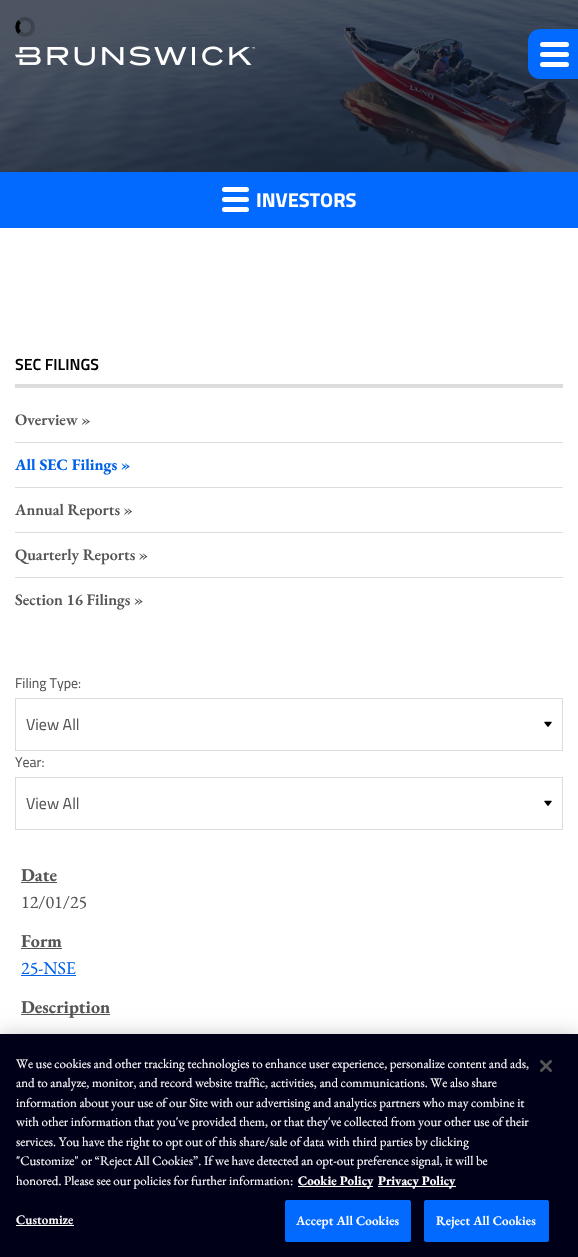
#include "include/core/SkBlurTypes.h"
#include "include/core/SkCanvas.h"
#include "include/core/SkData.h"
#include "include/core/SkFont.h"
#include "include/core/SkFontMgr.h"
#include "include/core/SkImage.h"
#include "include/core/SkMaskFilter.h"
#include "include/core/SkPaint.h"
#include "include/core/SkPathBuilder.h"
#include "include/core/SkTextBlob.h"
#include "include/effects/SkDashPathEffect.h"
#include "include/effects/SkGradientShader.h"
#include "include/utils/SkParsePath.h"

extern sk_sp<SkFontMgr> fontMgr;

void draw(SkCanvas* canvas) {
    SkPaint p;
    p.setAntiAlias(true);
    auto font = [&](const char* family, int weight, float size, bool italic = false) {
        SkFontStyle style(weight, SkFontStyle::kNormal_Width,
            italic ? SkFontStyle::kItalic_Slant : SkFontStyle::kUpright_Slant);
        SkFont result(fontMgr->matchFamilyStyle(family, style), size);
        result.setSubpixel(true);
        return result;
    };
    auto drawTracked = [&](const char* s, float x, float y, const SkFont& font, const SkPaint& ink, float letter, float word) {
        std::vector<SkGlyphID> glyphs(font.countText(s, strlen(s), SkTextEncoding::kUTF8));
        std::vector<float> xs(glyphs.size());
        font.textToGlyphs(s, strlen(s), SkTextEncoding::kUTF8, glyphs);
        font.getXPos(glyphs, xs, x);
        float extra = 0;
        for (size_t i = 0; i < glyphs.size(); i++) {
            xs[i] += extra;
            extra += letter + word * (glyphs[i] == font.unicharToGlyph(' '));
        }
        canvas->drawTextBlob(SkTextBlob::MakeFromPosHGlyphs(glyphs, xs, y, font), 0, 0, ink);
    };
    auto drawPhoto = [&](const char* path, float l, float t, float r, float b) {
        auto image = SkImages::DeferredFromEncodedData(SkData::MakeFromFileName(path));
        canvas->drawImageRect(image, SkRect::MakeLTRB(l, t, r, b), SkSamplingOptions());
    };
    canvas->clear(0xFFFFFFFF);
    drawPhoto("media/2.png", 0, 0, 578, 172);
    p.setStyle(SkPaint::kStroke_Style);
    p.setStrokeWidth(4);
    p.setColor(0xFF3D444E);
    canvas->drawPath(SkPathBuilder().moveTo(19.5f, 21.5f).cubicTo(21, 19.5f, 24, 18.5f, 26.5f, 19).cubicTo(36, 21, 34.5f, 35, 25, 35).cubicTo(23, 35, 21, 34, 19.5f, 32.5f).detach(), p);
    p.setColor(0xFF000000);
    canvas->drawPath(SkPathBuilder().moveTo(19.5f, 32.5f).cubicTo(16.5f, 29.5f, 16.5f, 24.5f, 19.5f, 21.5f).detach(), p);
    drawPhoto("media/1.png", 15, 46, 255, 66);
    p.setStyle(SkPaint::kFill_Style);
    p.setColor(0xFF026AFE);
    canvas->drawPath(SkPathBuilder().moveTo(540, 29).lineTo(578, 29).lineTo(578, 79).lineTo(540, 79).cubicTo(533.5f, 79, 528, 73.5f, 528, 67).lineTo(528, 41).cubicTo(528, 34.5f, 533.5f, 29, 540, 29).close().detach(), p);
    p.setColor(0xFFFFFFFF);
    canvas->drawRoundRect(SkRect::MakeLTRB(540, 42, 569, 47), 2.5f, 2.5f, p);
    canvas->drawRoundRect(SkRect::MakeLTRB(540, 52, 569, 57), 2.5f, 2.5f, p);
    canvas->drawRoundRect(SkRect::MakeLTRB(540, 62, 569, 67), 2.5f, 2.5f, p);
    p.setColor(0xFF026AFE);
    canvas->drawRect(SkRect::MakeLTRB(0, 172, 578, 228), p);
    p.setColor(0xFFFFFFFF);
    canvas->drawRoundRect(SkRect::MakeLTRB(222, 187, 249, 192), 2.5f, 2.5f, p);
    canvas->drawRoundRect(SkRect::MakeLTRB(222, 197, 249, 202), 2.5f, 2.5f, p);
    canvas->drawRoundRect(SkRect::MakeLTRB(222, 207, 249, 212), 2.5f, 2.5f, p);
    auto font1 = font("Titillium Web", 700, 20);
    canvas->drawString("INVESTORS", 256, 207, font1, p);
    p.setColor(0xFFDCDCDC);
    canvas->drawRect(SkRect::MakeLTRB(15, 384, 563, 388), p);
    auto font2 = font("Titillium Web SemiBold", 600, 16);
    p.setColor(0xFF000000);
    canvas->drawString("SEC FILINGS", 15, 370, font2, p);
    p.setColor(0xFFDCDCDC);
    canvas->drawRect(SkRect::MakeLTRB(15, 442, 563, 443), p);
    auto font3 = font("EB Garamond", 600, 16);
    p.setColor(0xFF555555);
    canvas->drawString("Overview »", 15, 425, font3, p);
    p.setColor(0xFFDCDCDC);
    canvas->drawRect(SkRect::MakeLTRB(15, 487, 563, 488), p);
    auto font4 = font("EB Garamond", 700, 16);
    p.setColor(0xFF0162E9);
    canvas->drawString("All SEC Filings »", 15, 470, font4, p);
    p.setColor(0xFFDCDCDC);
    canvas->drawRect(SkRect::MakeLTRB(15, 532, 563, 533), p);
    p.setColor(0xFF555555);
    canvas->drawString("Annual Reports »", 15, 515, font3, p);
    p.setColor(0xFFDCDCDC);
    canvas->drawRect(SkRect::MakeLTRB(15, 577, 563, 578), p);
    p.setColor(0xFF555555);
    canvas->drawString("Quarterly Reports »", 15, 560, font3, p);
    canvas->drawString("Section 16 Filings »", 15, 605, font3, p);
    auto font5 = font("Titillium Web", 400, 14);
    canvas->drawString("Filing Type:", 15, 688, font5, p);
    drawPhoto("media/3.png", 544, 721, 552, 727);
    p.setStyle(SkPaint::kStroke_Style);
    p.setStrokeWidth(1);
    p.setColor(0xFFDCDCDC);
    canvas->drawRect(SkRect::MakeLTRB(15.5f, 698.5f, 562.5f, 750.5f), p);
    auto font6 = font("Titillium Web", 400, 16);
    p.setStyle(SkPaint::kFill_Style);
    p.setColor(0xFF555555);
    canvas->drawString("View All", 26, 730, font6, p);
    canvas->drawString("Year:", 15, 767, font5, p);
    drawPhoto("media/3.png", 544, 800, 552, 806);
    p.setStyle(SkPaint::kStroke_Style);
    p.setColor(0xFFDCDCDC);
    canvas->drawRect(SkRect::MakeLTRB(15.5f, 777.5f, 562.5f, 829.5f), p);
    p.setStyle(SkPaint::kFill_Style);
    p.setColor(0xFF555555);
    canvas->drawString("View All", 26, 809, font6, p);
    canvas->drawRect(SkRect::MakeLTRB(21, 882, 57, 883), p);
    auto font7 = font("EB Garamond", 700, 18);
    canvas->drawString("Date", 21, 881, font7, p);
    auto font8 = font("EB Garamond", 400, 18);
    canvas->drawString("12/01/25", 21, 908, font8, p);
    canvas->drawRect(SkRect::MakeLTRB(21, 948, 62, 949), p);
    canvas->drawString("Form", 21, 947, font7, p);
    p.setColor(0xFF0162E9);
    canvas->drawString("25-NSE", 21, 974, font8, p);
    canvas->drawRect(SkRect::MakeLTRB(21, 975, 76, 976), p);
    p.setColor(0xFF555555);
    canvas->drawRect(SkRect::MakeLTRB(21, 1014, 110, 1015), p);
    canvas->drawString("Description", 21, 1013, font7, p);
    p.setColor(0x33000000);
    p.setMaskFilter(SkMaskFilter::MakeBlur(kNormal_SkBlurStyle, 9));
    canvas->drawRect(SkRect::MakeLTRB(0, 1034, 578, 1257), p);
    p.setMaskFilter(nullptr);
    p.setColor(0xFF000018);
    canvas->drawRect(SkRect::MakeLTRB(0, 1034, 578, 1257), p);
    auto font9 = font("EB Garamond", 400, 13);
    p.setColor(0xFFFFFFFF);
    {
        const struct { const char* s; float x, y; } items[] = {
            {"We use cookies and other tracking technologies to enhance user experience, personalize content and ads,", 16, 1068},
            {"and to analyze, monitor, and record website traffic, activities, and communications. We also share", 16, 1087},
            {"information about your use of our Site with our advertising and analytics partners who may combine it", 16, 1107},
            {"with other information that you've provided them, or that they've collected from your other use of their", 16, 1126},
            {"services. You have the right to opt out of this share/sale of data with third parties by clicking", 16, 1146},
            {"\"Customize\" or “Reject All Cookies”. If we have detected an opt-out preference signal, it will be", 16, 1165},
            {"honored. Please see our policies for further information:", 16, 1185},
        };
        for (auto [s, x, y] : items) {
            canvas->drawString(s, x, y, font9, p);
        }
    }
    canvas->drawRect(SkRect::MakeLTRB(298, 1186, 373, 1187), p);
    auto font10 = font("EB Garamond", 700, 13);
    canvas->drawString("Cookie Policy", 298, 1185, font10, p);
    canvas->drawRect(SkRect::MakeLTRB(378, 1186, 456, 1187), p);
    canvas->drawString("Privacy Policy", 378, 1185, font10, p);
    auto font11 = font("EB Garamond", 600, 13);
    drawTracked("Customize", 16, 1224, font11, p, 0.1f, 0);
    canvas->drawRect(SkRect::MakeLTRB(16, 1225, 74, 1226), p);
    p.setColor(0xFF026AFE);
    canvas->drawRoundRect(SkRect::MakeLTRB(285.5f, 1200.5f, 410.5f, 1241.5f), 1.5f, 1.5f, p);
    p.setStyle(SkPaint::kStroke_Style);
    canvas->drawRoundRect(SkRect::MakeLTRB(285.5f, 1200.5f, 410.5f, 1241.5f), 1.5f, 1.5f, p);
    p.setStyle(SkPaint::kFill_Style);
    p.setColor(0xFFFFFFFF);
    drawTracked("Accept All Cookies", 296, 1225, font11, p, 0.1f, 0);
    p.setColor(0xFF026AFE);
    canvas->drawRoundRect(SkRect::MakeLTRB(424.5f, 1200.5f, 548.5f, 1241.5f), 1.5f, 1.5f, p);
    p.setStyle(SkPaint::kStroke_Style);
    canvas->drawRoundRect(SkRect::MakeLTRB(424.5f, 1200.5f, 548.5f, 1241.5f), 1.5f, 1.5f, p);
    p.setStyle(SkPaint::kFill_Style);
    p.setColor(0xFFFFFFFF);
    drawTracked("Reject All Cookies", 436, 1225, font11, p, 0.1f, 0);
    drawPhoto("media/4.png", 540, 1060, 552, 1072);
}
